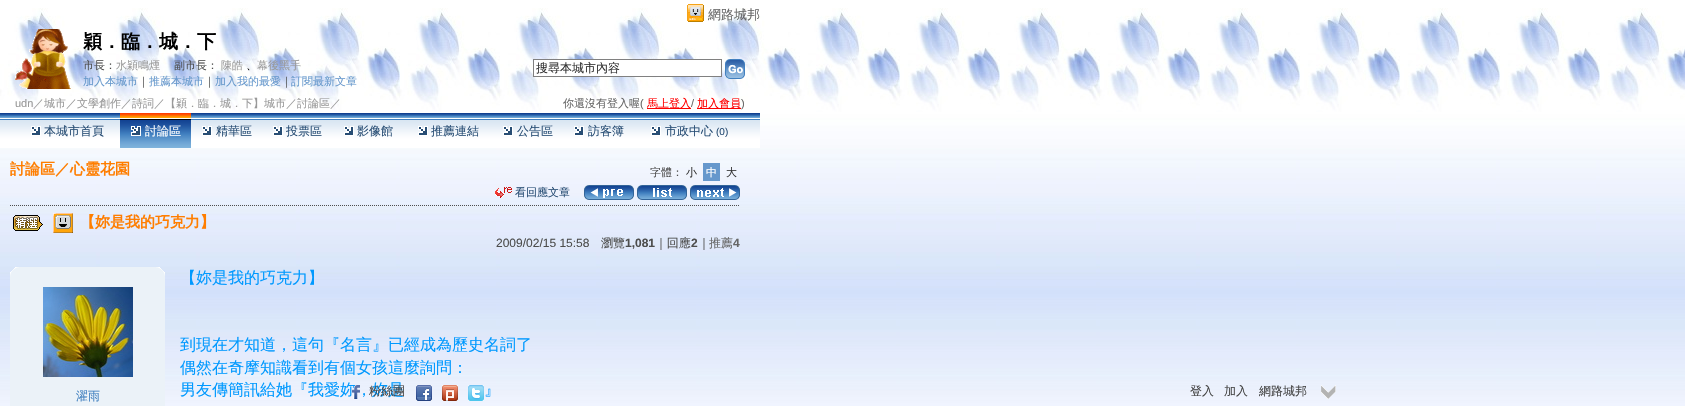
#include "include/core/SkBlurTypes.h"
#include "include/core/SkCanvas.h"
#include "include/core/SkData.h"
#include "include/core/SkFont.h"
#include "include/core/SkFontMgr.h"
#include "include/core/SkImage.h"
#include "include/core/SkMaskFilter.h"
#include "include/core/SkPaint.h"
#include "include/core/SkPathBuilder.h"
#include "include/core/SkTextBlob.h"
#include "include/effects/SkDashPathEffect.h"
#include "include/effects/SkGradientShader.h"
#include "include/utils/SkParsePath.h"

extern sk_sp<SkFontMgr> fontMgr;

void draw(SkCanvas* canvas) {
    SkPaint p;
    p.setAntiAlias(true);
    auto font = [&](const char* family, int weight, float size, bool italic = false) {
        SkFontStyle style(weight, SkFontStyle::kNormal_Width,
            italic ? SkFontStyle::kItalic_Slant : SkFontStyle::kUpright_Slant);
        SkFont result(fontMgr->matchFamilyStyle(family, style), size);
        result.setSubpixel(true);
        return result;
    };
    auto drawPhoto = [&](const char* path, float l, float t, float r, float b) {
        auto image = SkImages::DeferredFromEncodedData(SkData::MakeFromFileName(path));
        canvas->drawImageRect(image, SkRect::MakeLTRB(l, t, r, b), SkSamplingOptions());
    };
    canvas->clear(0xFFFFFFFF);
    drawPhoto("media/1.png", 0, 8, 1685, 406);
    drawPhoto("media/2.png", 687, 4, 704, 22);
    auto font1 = font("WenQuanYi Zen Hei", 500, 13);
    p.setColor(0xFF666666);
    canvas->drawString("網路城邦", 708, 19, font1, p);
    drawPhoto("media/3.png", 15, 29, 71, 89);
    auto font2 = font("WenQuanYi Zen Hei", 700, 19);
    p.setColor(0xFF000000);
    canvas->drawString("穎．臨．城．下", 83, 48, font2, p);
    auto font3 = font("WenQuanYi Zen Hei", 500, 11);
    p.setColor(0xFF4D4D4D);
    canvas->drawString("市長：", 83, 69, font3, p);
    p.setColor(0xFF999999);
    canvas->drawString("水穎鳴煙", 116, 69, font3, p);
    p.setColor(0xFF4D4D4D);
    canvas->drawString("副市長：", 174, 69, font3, p);
    p.setColor(0xFF999999);
    canvas->drawString("陳皓", 221, 69, font3, p);
    p.setColor(0xFF000000);
    canvas->drawString("、", 246, 69, font3, p);
    p.setColor(0xFF999999);
    canvas->drawString("幕後黑手", 257, 69, font3, p);
    p.setColor(0xFF6698CC);
    canvas->drawString("加入本城市", 83, 85, font3, p);
    p.setColor(0xFF4D4D4D);
    canvas->drawString("｜", 138, 85, font3, p);
    p.setColor(0xFF6698CC);
    canvas->drawString("推薦本城市", 149, 85, font3, p);
    p.setColor(0xFF4D4D4D);
    canvas->drawString("｜", 204, 85, font3, p);
    p.setColor(0xFF6698CC);
    canvas->drawString("加入我的最愛", 215, 85, font3, p);
    p.setColor(0xFF4D4D4D);
    canvas->drawString("｜", 281, 85, font3, p);
    p.setColor(0xFF6698CC);
    canvas->drawString("訂閱最新文章", 291, 85, font3, p);
    p.setColor(0xFFFFFFFF);
    canvas->drawRect(SkRect::MakeLTRB(533.5f, 59.5f, 721.5f, 76.5f), p);
    p.setStyle(SkPaint::kStroke_Style);
    p.setStrokeWidth(1);
    p.setColor(0xFF808080);
    canvas->drawRect(SkRect::MakeLTRB(533.5f, 59.5f, 721.5f, 76.5f), p);
    auto font4 = font("WenQuanYi Zen Hei", 500, 12);
    p.setStyle(SkPaint::kFill_Style);
    p.setColor(0xFF333333);
    canvas->drawString("搜尋本城市內容", 536, 72, font4, p);
    drawPhoto("media/4.png", 725, 59, 745, 79);
    auto font5 = font("Liberation Sans", 400, 11);
    p.setColor(0xFF999999);
    canvas->drawString("udn", 15, 107, font5, p);
    canvas->drawString("／城市／文學創作／詩詞／【穎．臨．城．下】城市／討論區／", 33, 107, font3, p);
    p.setColor(0xFF666666);
    canvas->drawString("你還沒有登入喔", 563, 107, font3, p);
    canvas->drawString("(", 640, 107, font5, p);
    p.setColor(0xFFFF0000);
    canvas->drawRect(SkRect::MakeLTRB(647, 108, 691, 109), p);
    canvas->drawString("馬上登入", 647, 107, font3, p);
    p.setColor(0xFF666666);
    canvas->drawString("/", 691, 107, font5, p);
    p.setColor(0xFFFF0000);
    canvas->drawRect(SkRect::MakeLTRB(697, 108, 741, 109), p);
    canvas->drawString("加入會員", 697, 107, font3, p);
    p.setColor(0xFF666666);
    canvas->drawString(")", 741, 107, font5, p);
    drawPhoto("media/5.png", 0, 113, 15, 148);
    drawPhoto("media/6.png", 15, 113, 120, 148);
    drawPhoto("media/7.png", 31, 126, 41, 136);
    p.setColor(0xFF274D74);
    canvas->drawString("本城市首頁", 44, 135, font4, p);
    drawPhoto("media/8.png", 120, 113, 191, 148);
    drawPhoto("media/9.png", 131, 126, 141, 136);
    p.setColor(0xFFFFFFFF);
    canvas->drawString("討論區", 145, 135, font4, p);
    drawPhoto("media/10.png", 191, 113, 262, 148);
    drawPhoto("media/7.png", 202, 126, 212, 136);
    p.setColor(0xFF274D74);
    canvas->drawString("精華區", 216, 135, font4, p);
    drawPhoto("media/10.png", 262, 113, 333, 148);
    drawPhoto("media/7.png", 273, 126, 283, 136);
    canvas->drawString("投票區", 286, 135, font4, p);
    drawPhoto("media/10.png", 333, 113, 404, 148);
    drawPhoto("media/7.png", 344, 126, 354, 136);
    canvas->drawString("影像館", 357, 135, font4, p);
    drawPhoto("media/11.png", 404, 113, 492, 148);
    drawPhoto("media/7.png", 418, 126, 428, 136);
    canvas->drawString("推薦連結", 431, 135, font4, p);
    drawPhoto("media/10.png", 492, 113, 563, 148);
    drawPhoto("media/7.png", 503, 126, 513, 136);
    canvas->drawString("公告區", 517, 135, font4, p);
    drawPhoto("media/10.png", 563, 113, 634, 148);
    drawPhoto("media/7.png", 574, 126, 584, 136);
    canvas->drawString("訪客簿", 588, 135, font4, p);
    drawPhoto("media/12.png", 634, 113, 745, 148);
    drawPhoto("media/7.png", 651, 126, 661, 136);
    canvas->drawString("市政中心", 665, 135, font4, p);
    auto font6 = font("Liberation Sans", 400, 10);
    canvas->drawString("(0)", 716, 135, font6, p);
    drawPhoto("media/5.png", 745, 113, 760, 148);
    auto font7 = font("WenQuanYi Zen Hei", 700, 15);
    p.setColor(0xFFFF7E00);
    canvas->drawString("討論區／心靈花園", 10, 174, font7, p);
    p.setColor(0xFF4D4D4D);
    canvas->drawString("字體：", 650, 176, font3, p);
    p.setColor(0xFF333333);
    canvas->drawString("小", 686, 176, font3, p);
    p.setColor(0xFF6698CC);
    canvas->drawRect(SkRect::MakeLTRB(703, 163, 720, 181), p);
    p.setColor(0xFFFFFFFF);
    canvas->drawString("中", 706, 176, font3, p);
    p.setColor(0xFF333333);
    canvas->drawString("大", 726, 176, font3, p);
    drawPhoto("media/13.png", 495, 187, 512, 198);
    p.setColor(0xFF274D74);
    canvas->drawString("看回應文章", 515, 196, font3, p);
    drawPhoto("media/14.png", 584, 185, 634, 200);
    drawPhoto("media/15.png", 637, 185, 687, 200);
    drawPhoto("media/16.png", 690, 185, 740, 200);
    drawPhoto("media/17.png", 10, 205, 739, 206);
    drawPhoto("media/18.png", 13, 215, 43, 231);
    drawPhoto("media/19.png", 53, 213, 73, 233);
    p.setColor(0xFFFF7E00);
    canvas->drawString("【妳是我的巧克力】", 80, 227, font7, p);
    auto font8 = font("Liberation Sans", 400, 12);
    p.setColor(0xFF4D4D4D);
    canvas->drawString("2009/02/15 15:58", 496, 247, font8, p);
    canvas->drawString("瀏覽", 601, 247, font4, p);
    auto font9 = font("Liberation Sans", 700, 12);
    canvas->drawString("1,081", 625, 247, font9, p);
    canvas->drawString("｜回應", 655, 247, font4, p);
    canvas->drawString("2", 691, 247, font9, p);
    canvas->drawString("｜", 698, 247, font4, p);
    p.setColor(0xFF666666);
    canvas->drawString("推薦", 709, 247, font4, p);
    canvas->drawString("4", 733, 247, font9, p);
    drawPhoto("media/20.png", 10, 267, 20, 277);
    p.setColor(0xFFEBF2F8);
    canvas->drawRect(SkRect::MakeLTRB(20, 267, 155, 277), p);
    drawPhoto("media/21.png", 155, 267, 165, 277);
    canvas->drawRect(SkRect::MakeLTRB(10, 277, 165, 406), p);
    drawPhoto("media/22.png", 43, 287, 133, 377);
    p.setColor(0xFF4180C0);
    canvas->drawString("濯雨", 76, 400, font4, p);
    auto font10 = font("WenQuanYi Zen Hei", 500, 16);
    p.setColor(0xFF0099FF);
    {
        const struct { const char* s; float x, y; } items[] = {
            {"【妳是我的巧克力】", 180, 283},
            {"到現在才知道，這句『名言』已經成為歷史名詞了", 180, 350},
            {"偶然在奇摩知識看到有個女孩這麼詢問：", 180, 373},
            {"男友傳簡訊給她『我愛妳，妳是", 180, 395},
            {"』", 484, 395},
        };
        for (auto [s, x, y] : items) {
            canvas->drawString(s, x, y, font10, p);
        }
    }
    drawPhoto("media/23.png", 352, 385, 360, 399);
    p.setColor(0xFF444444);
    canvas->drawString("粉絲團", 369, 395, font4, p);
    drawPhoto("media/24.png", 416, 385, 432, 401);
    drawPhoto("media/25.png", 442, 385, 458, 401);
    drawPhoto("media/26.png", 468, 385, 484, 401);
    {
        const struct { const char* s; float x, y; } items[] = {
            {"登入", 1190, 395},
            {"加入", 1224, 395},
            {"網路城邦", 1259, 395},
        };
        for (auto [s, x, y] : items) {
            canvas->drawString(s, x, y, font4, p);
        }
    }
    drawPhoto("media/27.png", 1321, 385, 1336, 399);
}
